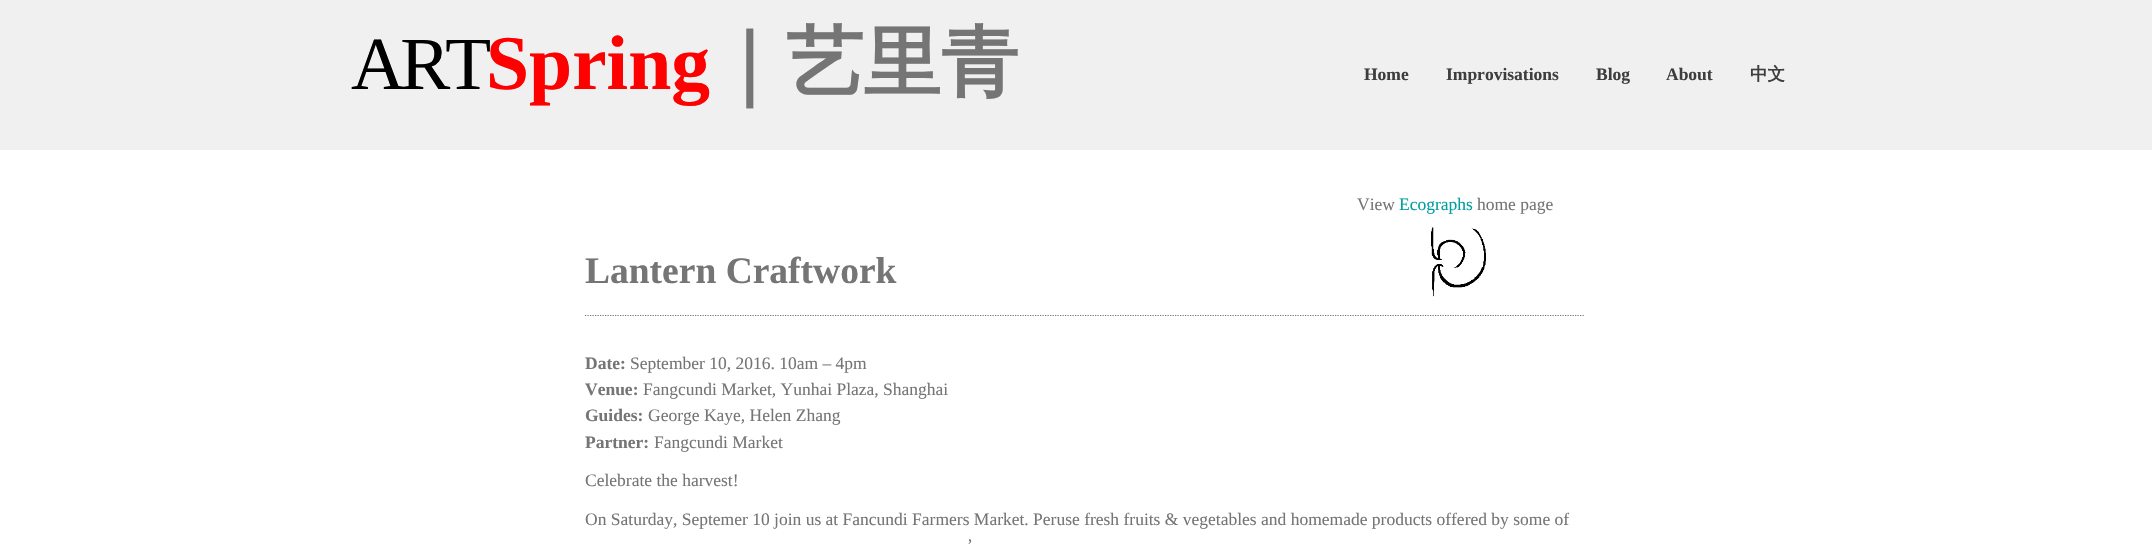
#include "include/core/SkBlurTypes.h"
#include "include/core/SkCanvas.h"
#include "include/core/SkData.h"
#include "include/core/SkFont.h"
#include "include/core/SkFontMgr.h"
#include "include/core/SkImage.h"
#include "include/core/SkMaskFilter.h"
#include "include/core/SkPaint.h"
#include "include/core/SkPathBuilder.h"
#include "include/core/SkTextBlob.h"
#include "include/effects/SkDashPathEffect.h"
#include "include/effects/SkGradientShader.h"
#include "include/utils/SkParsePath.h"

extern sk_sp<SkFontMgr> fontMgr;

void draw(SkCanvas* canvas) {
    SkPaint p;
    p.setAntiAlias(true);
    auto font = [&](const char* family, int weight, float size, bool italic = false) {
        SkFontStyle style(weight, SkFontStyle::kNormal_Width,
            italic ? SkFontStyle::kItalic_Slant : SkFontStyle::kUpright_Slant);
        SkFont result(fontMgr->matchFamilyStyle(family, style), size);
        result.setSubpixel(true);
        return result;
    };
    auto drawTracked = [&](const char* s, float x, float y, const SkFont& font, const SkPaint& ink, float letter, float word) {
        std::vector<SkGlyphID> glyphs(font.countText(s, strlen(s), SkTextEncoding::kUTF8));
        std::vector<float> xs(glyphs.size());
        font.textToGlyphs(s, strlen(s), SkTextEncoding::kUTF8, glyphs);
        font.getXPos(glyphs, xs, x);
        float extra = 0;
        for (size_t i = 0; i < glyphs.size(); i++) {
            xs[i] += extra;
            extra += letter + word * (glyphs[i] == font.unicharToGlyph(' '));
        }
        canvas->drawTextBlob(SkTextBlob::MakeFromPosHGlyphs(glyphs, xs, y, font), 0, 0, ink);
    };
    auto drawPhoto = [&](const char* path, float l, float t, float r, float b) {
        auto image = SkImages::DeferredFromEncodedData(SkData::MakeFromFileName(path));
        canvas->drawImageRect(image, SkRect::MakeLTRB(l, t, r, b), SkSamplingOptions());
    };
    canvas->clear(0xFFFFFFFF);
    p.setColor(0xFFF0F0F0);
    canvas->drawRect(SkRect::MakeLTRB(0, 0, 2152, 150), p);
    auto font1 = font("Liberation Serif", 400, 75);
    p.setColor(0xFF000000);
    drawTracked("ART", 351, 89, font1, p, -5, 0);
    auto font2 = font("Liberation Serif", 700, 77.5f);
    p.setColor(0xFFFF0000);
    canvas->drawString("Spring", 486, 89, font2, p);
    auto font3 = font("WenQuanYi Zen Hei", 700, 77.5f);
    p.setColor(0xFF757575);
    canvas->drawString("｜艺里青", 710, 89, font3, p);
    auto font4 = font("Liberation Serif", 700, 17.5f);
    p.setColor(0xFF3E3E3E);
    {
        const struct { const char* s; float x, y; } items[] = {
            {"Home", 1364, 80},
            {"Improvisations", 1446, 80},
            {"Blog", 1596, 80},
            {"About", 1666, 80},
        };
        for (auto [s, x, y] : items) {
            canvas->drawString(s, x, y, font4, p);
        }
    }
    auto font5 = font("WenQuanYi Zen Hei", 700, 17.5f);
    canvas->drawString("中文", 1750, 80, font5, p);
    auto font6 = font("Liberation Serif", 400, 17.5f);
    p.setColor(0xFF757575);
    canvas->drawString("View", 1357, 210, font6, p);
    p.setColor(0xFF009E9E);
    canvas->drawString("Ecographs", 1399, 210, font6, p);
    p.setColor(0xFF757575);
    canvas->drawString("home page", 1477, 210, font6, p);
    drawPhoto("media/1.png", 1427, 227, 1486, 297);
    p.setStyle(SkPaint::kStroke_Style);
    p.setStrokeWidth(1.2f);
    p.setPathEffect(SkDashPathEffect::Make({{1.25f, 1.25f}}, 0));
    canvas->drawPath(SkPathBuilder().moveTo(585, 315.5f).lineTo(1585, 315.5f).detach(), p);
    p.setPathEffect(nullptr);
    auto font7 = font("Liberation Serif", 700, 37.5f);
    p.setStyle(SkPaint::kFill_Style);
    canvas->drawString("Lantern Craftwork", 585, 283, font7, p);
    canvas->drawString("Date:", 585, 369, font4, p);
    canvas->drawString("September 10, 2016. 10am – 4pm", 630, 369, font6, p);
    canvas->drawString("Venue:", 585, 395, font4, p);
    canvas->drawString("Fangcundi Market, Yunhai Plaza, Shanghai", 643, 395, font6, p);
    canvas->drawString("Guides:", 585, 421, font4, p);
    canvas->drawString("George Kaye, Helen Zhang", 648, 421, font6, p);
    canvas->drawString("Partner:", 585, 448, font4, p);
    {
        const struct { const char* s; float x, y; } items[] = {
            {"Fangcundi Market", 654, 448},
            {"Celebrate the harvest!", 585, 486},
            {"On Saturday, Septemer 10 join us at Fancundi Farmers Market. Peruse fresh fruits & vegetables and homemade products offered by some of", 585, 525},
            {"’", 967, 551},
        };
        for (auto [s, x, y] : items) {
            canvas->drawString(s, x, y, font6, p);
        }
    }
}
